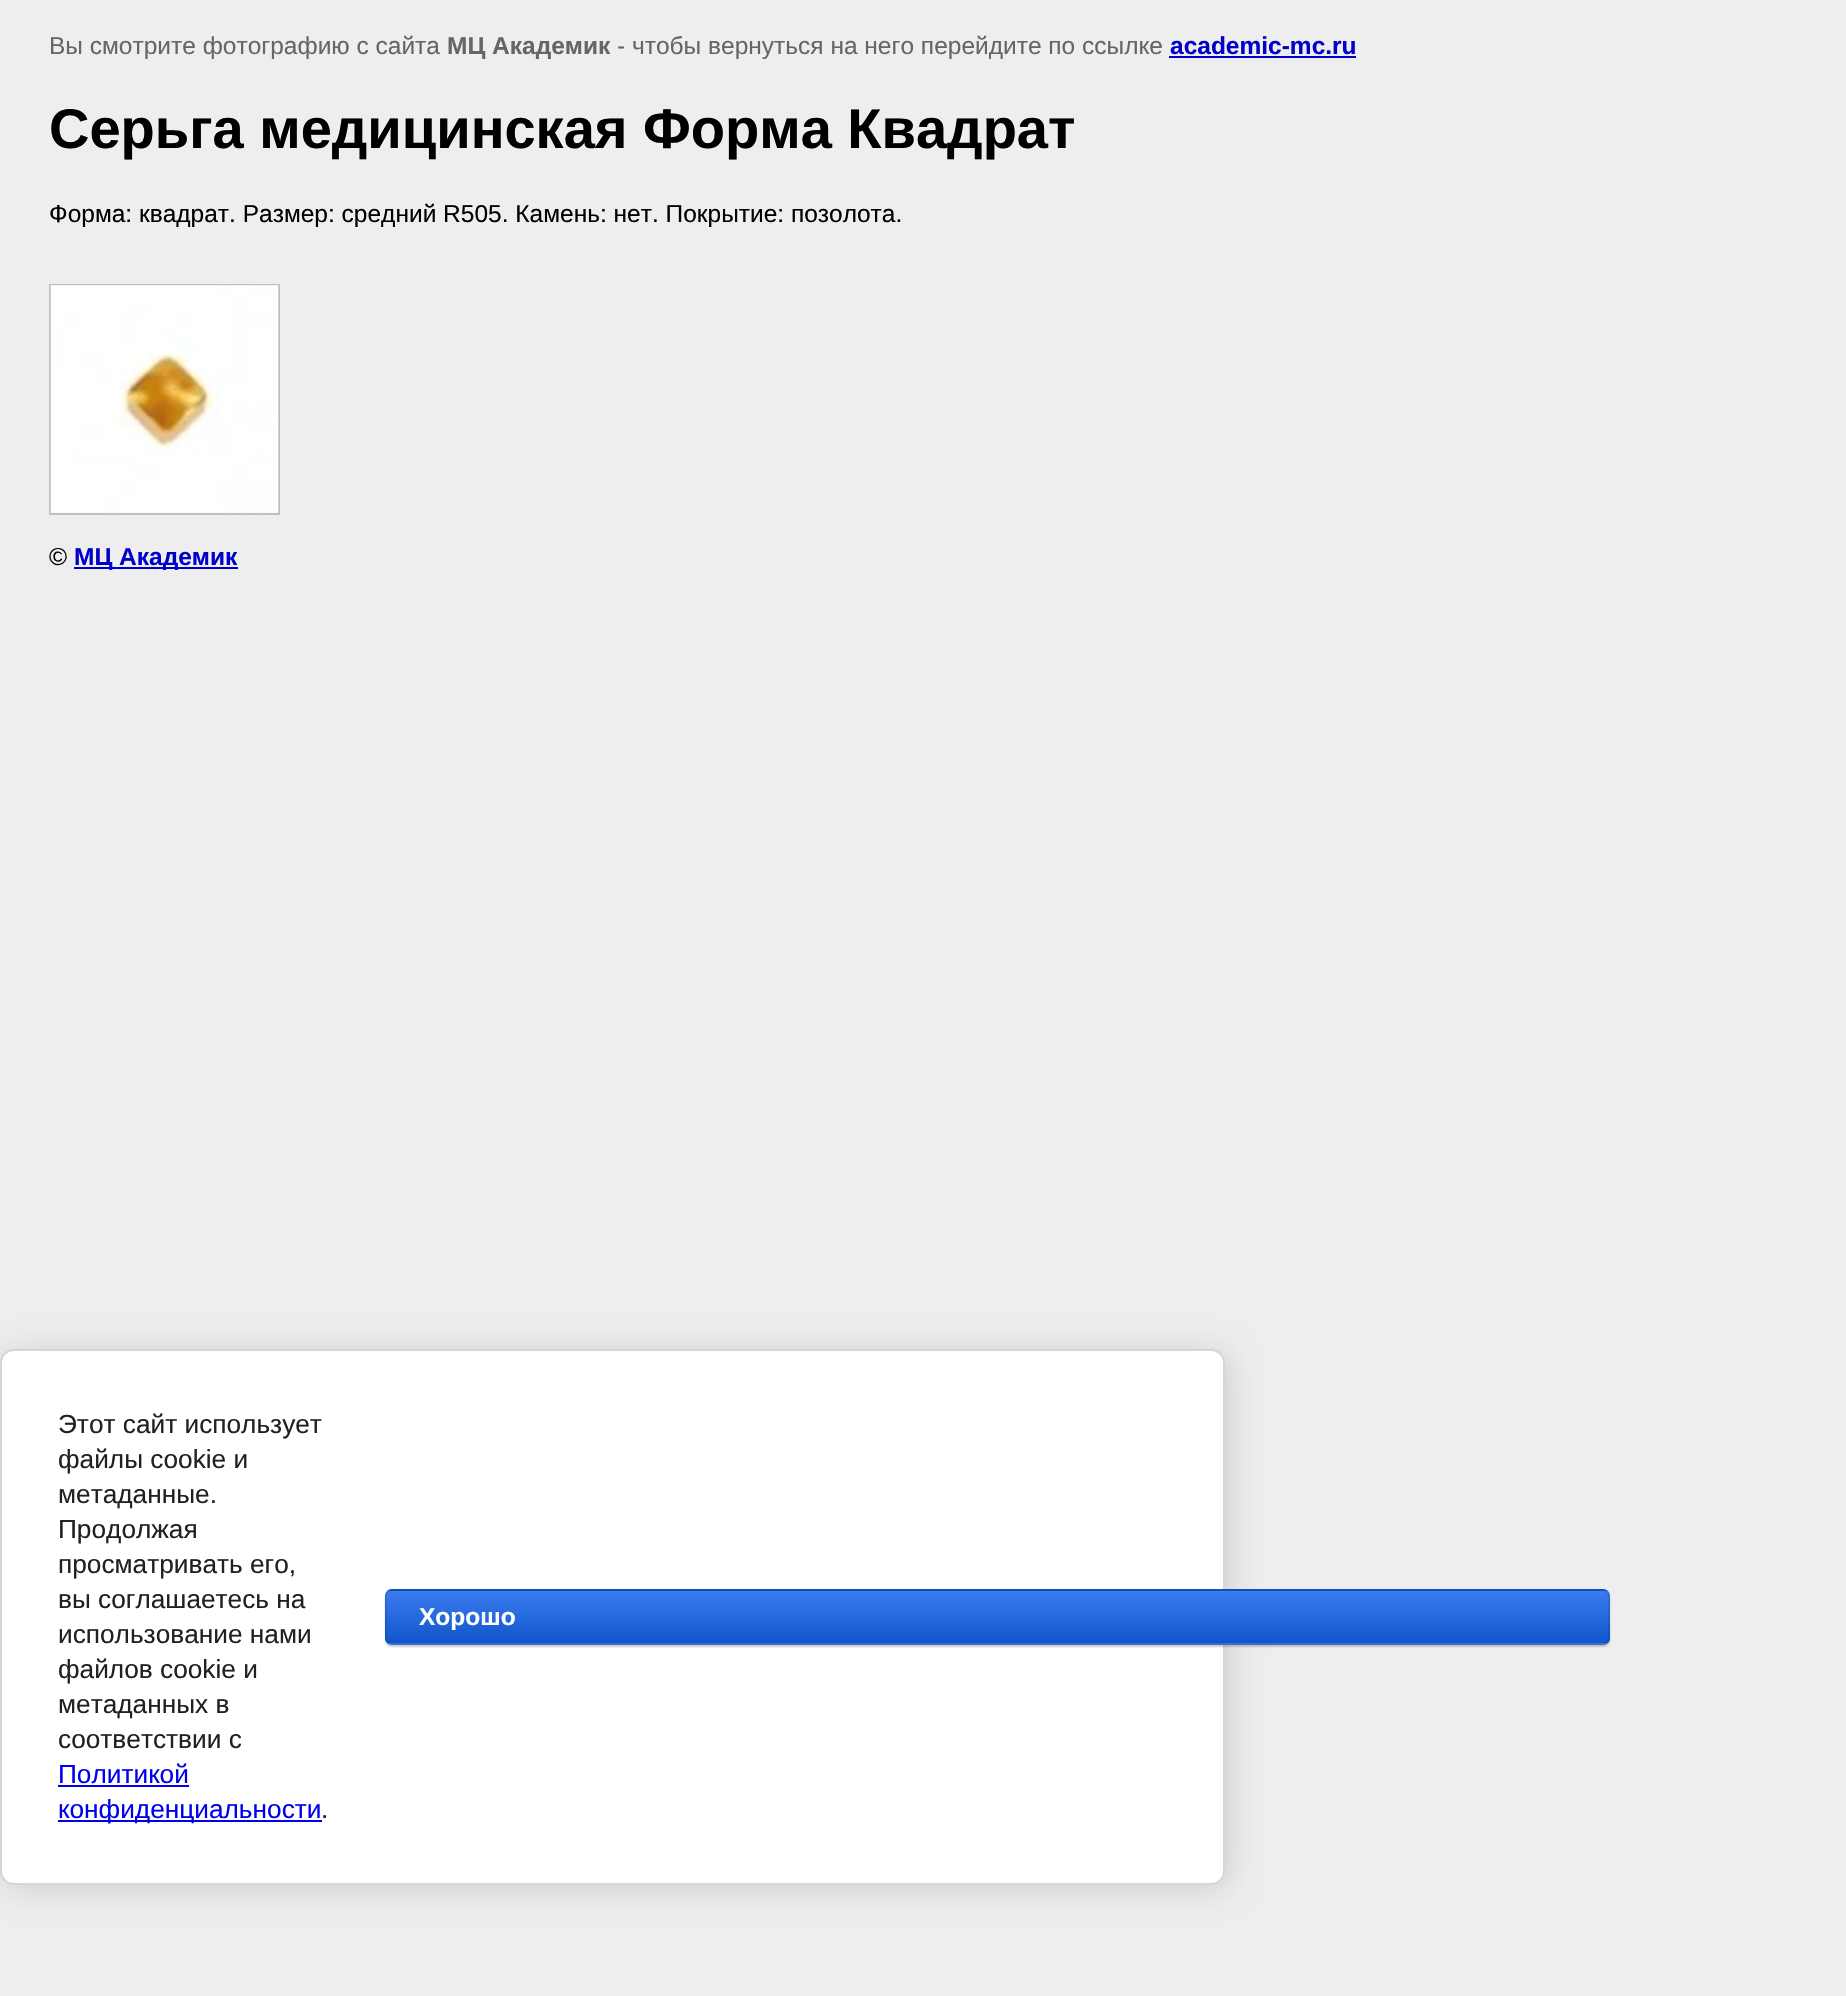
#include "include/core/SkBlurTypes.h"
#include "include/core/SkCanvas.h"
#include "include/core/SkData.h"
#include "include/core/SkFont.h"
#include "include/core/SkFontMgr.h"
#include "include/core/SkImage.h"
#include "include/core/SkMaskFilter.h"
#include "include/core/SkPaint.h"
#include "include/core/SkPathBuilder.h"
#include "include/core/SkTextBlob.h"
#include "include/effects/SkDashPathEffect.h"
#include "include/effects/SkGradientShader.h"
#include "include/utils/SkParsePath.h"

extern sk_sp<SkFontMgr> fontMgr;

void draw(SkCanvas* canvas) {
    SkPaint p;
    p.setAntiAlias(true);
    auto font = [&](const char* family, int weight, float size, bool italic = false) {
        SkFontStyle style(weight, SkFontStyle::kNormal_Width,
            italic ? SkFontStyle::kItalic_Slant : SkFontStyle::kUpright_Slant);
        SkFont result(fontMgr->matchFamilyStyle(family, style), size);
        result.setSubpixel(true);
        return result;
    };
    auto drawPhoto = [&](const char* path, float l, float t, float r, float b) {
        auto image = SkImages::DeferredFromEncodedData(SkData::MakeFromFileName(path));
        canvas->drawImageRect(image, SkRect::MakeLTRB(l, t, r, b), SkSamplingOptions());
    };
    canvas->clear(0xFFEEEEEE);
    auto font1 = font("Liberation Sans", 400, 24.5f);
    p.setColor(0xFF666666);
    canvas->drawString("Вы смотрите фотографию с сайта", 49, 54, font1, p);
    auto font2 = font("Liberation Sans", 700, 24.5f);
    canvas->drawString("МЦ Академик", 447, 54, font2, p);
    canvas->drawString("- чтобы вернуться на него перейдите по ссылке", 617, 54, font1, p);
    p.setColor(0xFF0000CC);
    canvas->drawString("academic-mc.ru", 1170, 54, font2, p);
    canvas->drawRect(SkRect::MakeLTRB(1169, 56, 1356, 58), p);
    auto font3 = font("Liberation Sans", 700, 56);
    p.setColor(0xFF000000);
    canvas->drawString("Серьга медицинская Форма Квадрат", 49, 148, font3, p);
    canvas->drawString("Форма: квадрат. Размер: средний R505. Камень: нет. Покрытие: позолота.", 49, 222, font1, p);
    p.setStyle(SkPaint::kStroke_Style);
    p.setStrokeWidth(2);
    p.setColor(0xFFC0C0C0);
    canvas->drawRect(SkRect::MakeLTRB(50, 285, 279, 514), p);
    drawPhoto("media/1.png", 50, 285, 279, 513);
    p.setStyle(SkPaint::kFill_Style);
    p.setColor(0xFF000000);
    canvas->drawString("©", 49, 565, font1, p);
    p.setColor(0xFF0000CC);
    canvas->drawRect(SkRect::MakeLTRB(74, 567, 238, 569), p);
    canvas->drawString("МЦ Академик", 74, 565, font2, p);
    p.setColor(0x24000000);
    p.setMaskFilter(SkMaskFilter::MakeBlur(kNormal_SkBlurStyle, 16));
    canvas->drawRoundRect(SkRect::MakeLTRB(4, 1353, 1229, 1888), 14, 14, p);
    p.setMaskFilter(nullptr);
    p.setColor(0xFFFFFFFF);
    canvas->drawRoundRect(SkRect::MakeLTRB(1, 1350, 1224, 1884), 13, 13, p);
    p.setStyle(SkPaint::kStroke_Style);
    p.setColor(0xFFD6D6D6);
    canvas->drawRoundRect(SkRect::MakeLTRB(1, 1350, 1224, 1884), 13, 13, p);
    auto font4 = font("Liberation Sans", 400, 26.25f);
    p.setStyle(SkPaint::kFill_Style);
    p.setColor(0xFF212121);
    {
        const struct { const char* s; float x, y; } items[] = {
            {"Этот сайт использует", 58, 1433},
            {"файлы cookie и", 58, 1468},
            {"метаданные.", 58, 1503},
            {"Продолжая", 58, 1538},
            {"просматривать его,", 58, 1573},
            {"вы соглашаетесь на", 58, 1608},
            {"использование нами", 58, 1643},
            {"файлов cookie и", 58, 1678},
            {"метаданных в", 58, 1713},
            {"соответствии с", 58, 1748},
        };
        for (auto [s, x, y] : items) {
            canvas->drawString(s, x, y, font4, p);
        }
    }
    p.setColor(0xFF0000EE);
    canvas->drawString("Политикой", 58, 1783, font4, p);
    canvas->drawRect(SkRect::MakeLTRB(58, 1785, 189, 1787), p);
    canvas->drawRect(SkRect::MakeLTRB(58, 1820, 322, 1822), p);
    canvas->drawString("конфиденциальности", 58, 1818, font4, p);
    p.setColor(0xFF212121);
    canvas->drawString(".", 321, 1818, font4, p);
    p.setColor(0x33000000);
    p.setMaskFilter(SkMaskFilter::MakeBlur(kNormal_SkBlurStyle, 1));
    canvas->drawRoundRect(SkRect::MakeLTRB(385, 1591, 1610, 1647), 7, 7, p);
    p.setMaskFilter(nullptr);
    canvas->save();
    canvas->clipPath(SkPathBuilder().moveTo(392, 1589).lineTo(1603, 1589).cubicTo(1607, 1589, 1610, 1592, 1610, 1596).lineTo(1610, 1638).cubicTo(1610, 1642, 1607, 1645, 1603, 1645).lineTo(392, 1645).cubicTo(388, 1645, 385, 1642, 385, 1638).lineTo(385, 1596).cubicTo(385, 1592, 388, 1589, 392, 1589).close().detach(), true);
    {
        const SkColor colors[] = {0xFF3B7CEF, 0xFF1155CC};
        const float stops[] = {0, 1};
        const SkPoint ends[] = {{998, 1538}, {998, 1591}};
        p.setShader(SkGradientShader::MakeLinear(ends, colors, stops, 2, SkTileMode::kClamp));
        p.setAlpha(255);
    }
    canvas->drawRect(SkRect::MakeLTRB(385, 1589, 1610, 1591), p);
    {
        const SkColor colors[] = {0xFF3B7CEF, 0xFF1155CC};
        const float stops[] = {0, 1};
        const SkPoint ends[] = {{998, 1591}, {998, 1643}};
        p.setShader(SkGradientShader::MakeLinear(ends, colors, stops, 2, SkTileMode::kClamp));
        p.setAlpha(255);
    }
    canvas->drawRect(SkRect::MakeLTRB(385, 1591, 1610, 1643), p);
    {
        const SkColor colors[] = {0xFF3B7CEF, 0xFF1155CC};
        const float stops[] = {0, 1};
        const SkPoint ends[] = {{998, 1643}, {998, 1696}};
        p.setShader(SkGradientShader::MakeLinear(ends, colors, stops, 2, SkTileMode::kClamp));
        p.setAlpha(255);
    }
    canvas->drawRect(SkRect::MakeLTRB(385, 1643, 1610, 1645), p);
    canvas->restore();
    p.setStyle(SkPaint::kStroke_Style);
    p.setShader(nullptr);
    p.setColor(0x1A000000);
    canvas->drawRoundRect(SkRect::MakeLTRB(386, 1590, 1609, 1644), 6, 6, p);
    p.setStyle(SkPaint::kFill_Style);
    p.setColor(0xFFFFFFFF);
    canvas->drawString("Хорошо", 419, 1625, font2, p);
}
